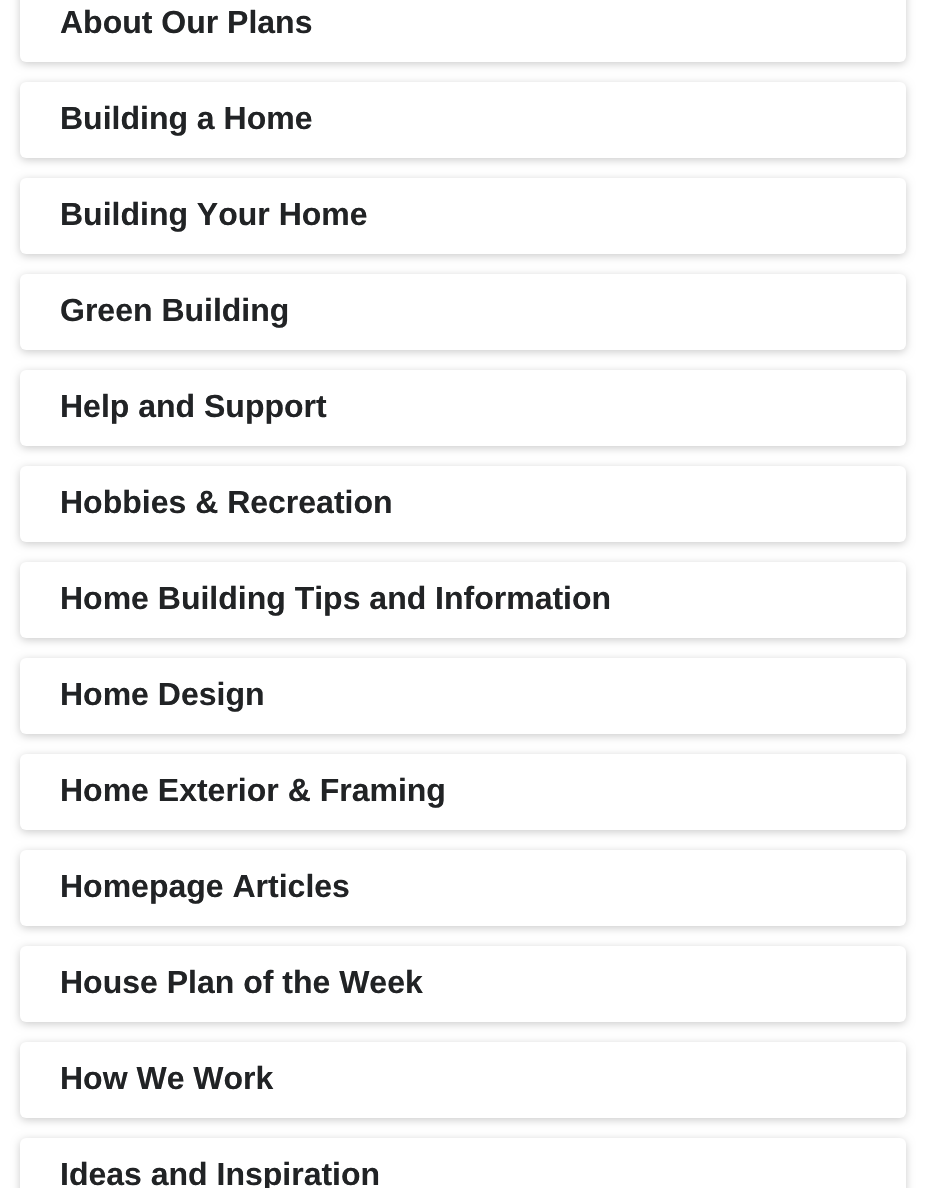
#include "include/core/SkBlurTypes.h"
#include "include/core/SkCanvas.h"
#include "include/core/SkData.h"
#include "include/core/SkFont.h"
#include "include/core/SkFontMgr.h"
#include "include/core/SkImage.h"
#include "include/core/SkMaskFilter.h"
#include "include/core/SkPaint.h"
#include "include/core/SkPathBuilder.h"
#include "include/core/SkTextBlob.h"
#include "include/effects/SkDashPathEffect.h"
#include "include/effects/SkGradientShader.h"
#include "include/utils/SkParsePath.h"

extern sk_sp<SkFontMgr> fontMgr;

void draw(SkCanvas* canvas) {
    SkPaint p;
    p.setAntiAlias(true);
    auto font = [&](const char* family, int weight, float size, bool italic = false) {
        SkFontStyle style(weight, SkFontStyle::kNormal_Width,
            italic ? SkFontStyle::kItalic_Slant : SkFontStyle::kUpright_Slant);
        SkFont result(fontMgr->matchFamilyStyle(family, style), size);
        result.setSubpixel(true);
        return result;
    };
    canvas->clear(0xFFFFFFFF);
    p.setColor(0x33000000);
    p.setMaskFilter(SkMaskFilter::MakeBlur(kNormal_SkBlurStyle, 4));
    canvas->drawRoundRect(SkRect::MakeLTRB(20, -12, 906, 64), 6, 6, p);
    p.setMaskFilter(nullptr);
    p.setColor(0xFFFFFFFF);
    canvas->drawRoundRect(SkRect::MakeLTRB(20, -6, 906, 62), 6, 6, p);
    auto font1 = font("Liberation Sans", 700, 32);
    p.setColor(0xFF212325);
    canvas->drawString("About Our Plans", 60, 33, font1, p);
    p.setColor(0x33000000);
    p.setMaskFilter(SkMaskFilter::MakeBlur(kNormal_SkBlurStyle, 4));
    canvas->drawRoundRect(SkRect::MakeLTRB(20, 84, 906, 160), 6, 6, p);
    p.setMaskFilter(nullptr);
    p.setColor(0xFFFFFFFF);
    canvas->drawRoundRect(SkRect::MakeLTRB(20, 82, 906, 158), 6, 6, p);
    p.setColor(0xFF212325);
    canvas->drawString("Building a Home", 60, 129, font1, p);
    p.setColor(0x33000000);
    p.setMaskFilter(SkMaskFilter::MakeBlur(kNormal_SkBlurStyle, 4));
    canvas->drawRoundRect(SkRect::MakeLTRB(20, 180, 906, 256), 6, 6, p);
    p.setMaskFilter(nullptr);
    p.setColor(0xFFFFFFFF);
    canvas->drawRoundRect(SkRect::MakeLTRB(20, 178, 906, 254), 6, 6, p);
    p.setColor(0xFF212325);
    canvas->drawString("Building Your Home", 60, 225, font1, p);
    p.setColor(0x33000000);
    p.setMaskFilter(SkMaskFilter::MakeBlur(kNormal_SkBlurStyle, 4));
    canvas->drawRoundRect(SkRect::MakeLTRB(20, 276, 906, 352), 6, 6, p);
    p.setMaskFilter(nullptr);
    p.setColor(0xFFFFFFFF);
    canvas->drawRoundRect(SkRect::MakeLTRB(20, 274, 906, 350), 6, 6, p);
    p.setColor(0xFF212325);
    canvas->drawString("Green Building", 60, 321, font1, p);
    p.setColor(0x33000000);
    p.setMaskFilter(SkMaskFilter::MakeBlur(kNormal_SkBlurStyle, 4));
    canvas->drawRoundRect(SkRect::MakeLTRB(20, 372, 906, 448), 6, 6, p);
    p.setMaskFilter(nullptr);
    p.setColor(0xFFFFFFFF);
    canvas->drawRoundRect(SkRect::MakeLTRB(20, 370, 906, 446), 6, 6, p);
    p.setColor(0xFF212325);
    canvas->drawString("Help and Support", 60, 417, font1, p);
    p.setColor(0x33000000);
    p.setMaskFilter(SkMaskFilter::MakeBlur(kNormal_SkBlurStyle, 4));
    canvas->drawRoundRect(SkRect::MakeLTRB(20, 468, 906, 544), 6, 6, p);
    p.setMaskFilter(nullptr);
    p.setColor(0xFFFFFFFF);
    canvas->drawRoundRect(SkRect::MakeLTRB(20, 466, 906, 542), 6, 6, p);
    p.setColor(0xFF212325);
    canvas->drawString("Hobbies & Recreation", 60, 513, font1, p);
    p.setColor(0x33000000);
    p.setMaskFilter(SkMaskFilter::MakeBlur(kNormal_SkBlurStyle, 4));
    canvas->drawRoundRect(SkRect::MakeLTRB(20, 564, 906, 640), 6, 6, p);
    p.setMaskFilter(nullptr);
    p.setColor(0xFFFFFFFF);
    canvas->drawRoundRect(SkRect::MakeLTRB(20, 562, 906, 638), 6, 6, p);
    p.setColor(0xFF212325);
    canvas->drawString("Home Building Tips and Information", 60, 609, font1, p);
    p.setColor(0x33000000);
    p.setMaskFilter(SkMaskFilter::MakeBlur(kNormal_SkBlurStyle, 4));
    canvas->drawRoundRect(SkRect::MakeLTRB(20, 660, 906, 736), 6, 6, p);
    p.setMaskFilter(nullptr);
    p.setColor(0xFFFFFFFF);
    canvas->drawRoundRect(SkRect::MakeLTRB(20, 658, 906, 734), 6, 6, p);
    p.setColor(0xFF212325);
    canvas->drawString("Home Design", 60, 705, font1, p);
    p.setColor(0x33000000);
    p.setMaskFilter(SkMaskFilter::MakeBlur(kNormal_SkBlurStyle, 4));
    canvas->drawRoundRect(SkRect::MakeLTRB(20, 756, 906, 832), 6, 6, p);
    p.setMaskFilter(nullptr);
    p.setColor(0xFFFFFFFF);
    canvas->drawRoundRect(SkRect::MakeLTRB(20, 754, 906, 830), 6, 6, p);
    p.setColor(0xFF212325);
    canvas->drawString("Home Exterior & Framing", 60, 801, font1, p);
    p.setColor(0x33000000);
    p.setMaskFilter(SkMaskFilter::MakeBlur(kNormal_SkBlurStyle, 4));
    canvas->drawRoundRect(SkRect::MakeLTRB(20, 852, 906, 928), 6, 6, p);
    p.setMaskFilter(nullptr);
    p.setColor(0xFFFFFFFF);
    canvas->drawRoundRect(SkRect::MakeLTRB(20, 850, 906, 926), 6, 6, p);
    p.setColor(0xFF212325);
    canvas->drawString("Homepage Articles", 60, 897, font1, p);
    p.setColor(0x33000000);
    p.setMaskFilter(SkMaskFilter::MakeBlur(kNormal_SkBlurStyle, 4));
    canvas->drawRoundRect(SkRect::MakeLTRB(20, 948, 906, 1024), 6, 6, p);
    p.setMaskFilter(nullptr);
    p.setColor(0xFFFFFFFF);
    canvas->drawRoundRect(SkRect::MakeLTRB(20, 946, 906, 1022), 6, 6, p);
    p.setColor(0xFF212325);
    canvas->drawString("House Plan of the Week", 60, 993, font1, p);
    p.setColor(0x33000000);
    p.setMaskFilter(SkMaskFilter::MakeBlur(kNormal_SkBlurStyle, 4));
    canvas->drawRoundRect(SkRect::MakeLTRB(20, 1044, 906, 1120), 6, 6, p);
    p.setMaskFilter(nullptr);
    p.setColor(0xFFFFFFFF);
    canvas->drawRoundRect(SkRect::MakeLTRB(20, 1042, 906, 1118), 6, 6, p);
    p.setColor(0xFF212325);
    canvas->drawString("How We Work", 60, 1089, font1, p);
    p.setColor(0x33000000);
    p.setMaskFilter(SkMaskFilter::MakeBlur(kNormal_SkBlurStyle, 4));
    canvas->drawRoundRect(SkRect::MakeLTRB(20, 1140, 906, 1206), 6, 6, p);
    p.setMaskFilter(nullptr);
    p.setColor(0xFFFFFFFF);
    canvas->drawRoundRect(SkRect::MakeLTRB(20, 1138, 906, 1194), 6, 6, p);
    p.setColor(0xFF212325);
    canvas->drawString("Ideas and Inspiration", 60, 1185, font1, p);
}
